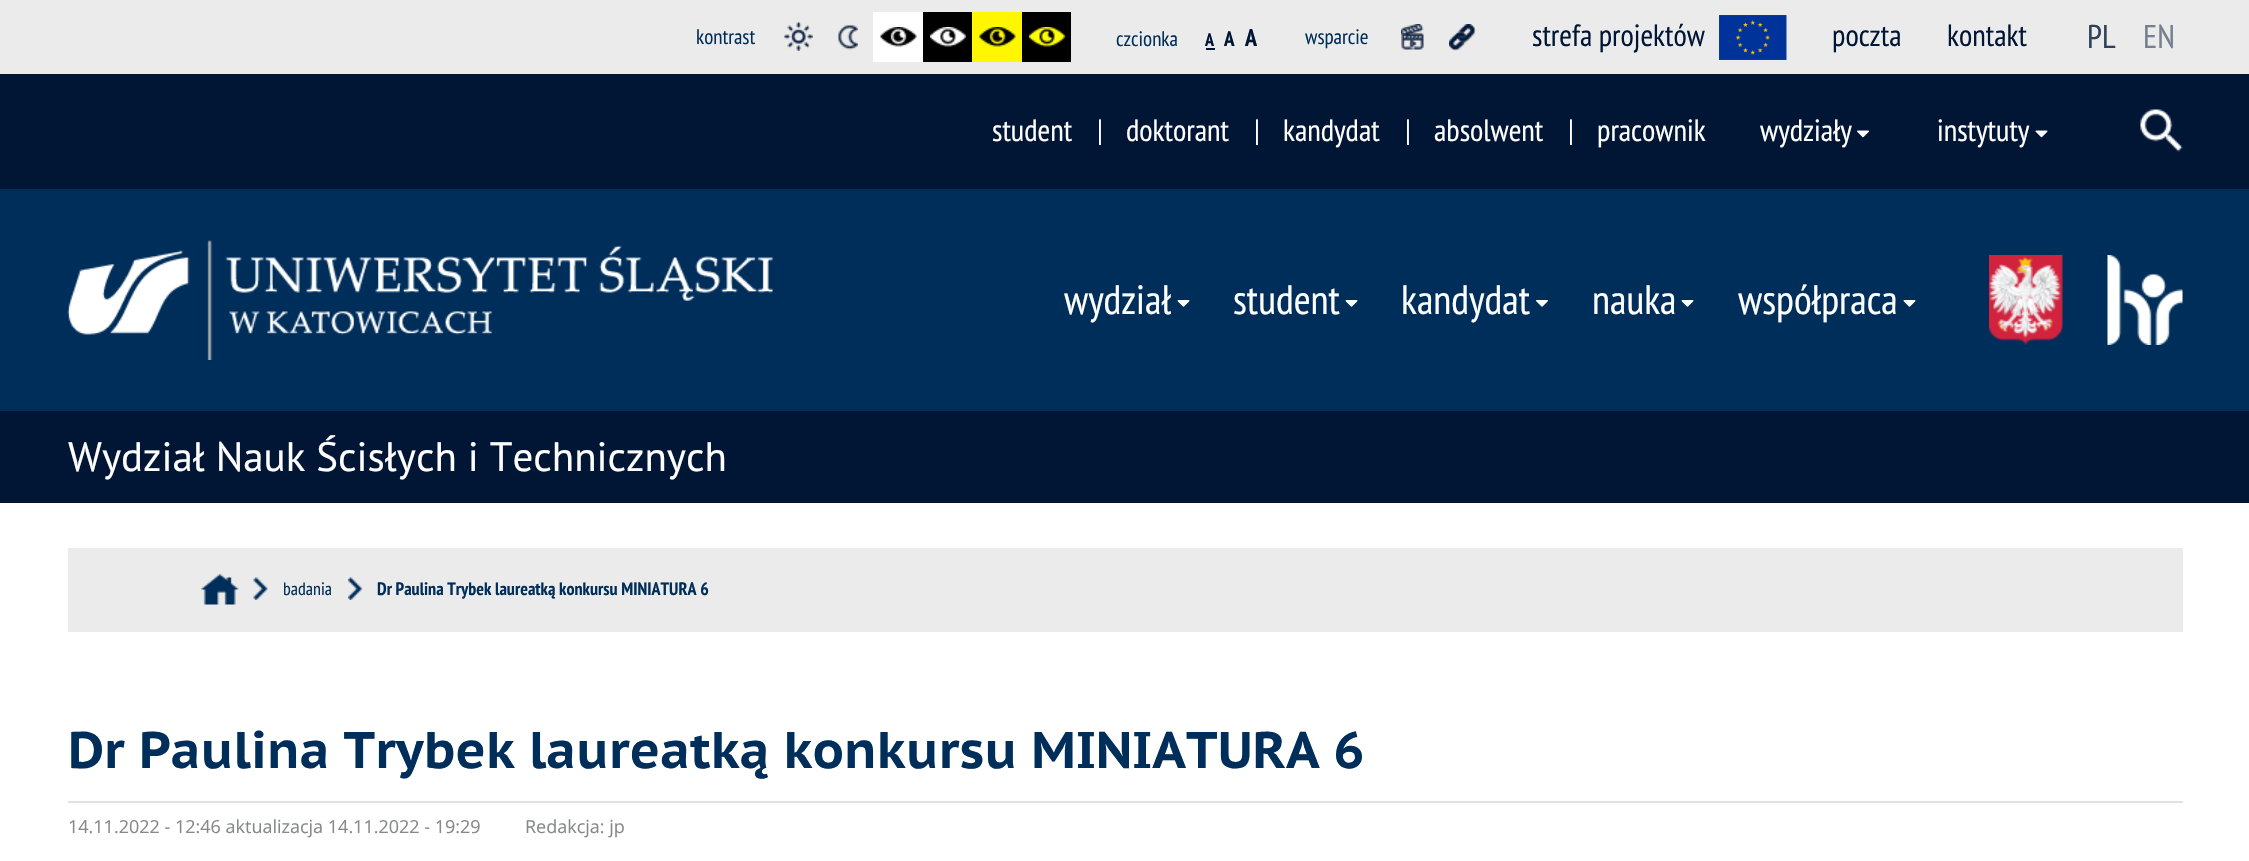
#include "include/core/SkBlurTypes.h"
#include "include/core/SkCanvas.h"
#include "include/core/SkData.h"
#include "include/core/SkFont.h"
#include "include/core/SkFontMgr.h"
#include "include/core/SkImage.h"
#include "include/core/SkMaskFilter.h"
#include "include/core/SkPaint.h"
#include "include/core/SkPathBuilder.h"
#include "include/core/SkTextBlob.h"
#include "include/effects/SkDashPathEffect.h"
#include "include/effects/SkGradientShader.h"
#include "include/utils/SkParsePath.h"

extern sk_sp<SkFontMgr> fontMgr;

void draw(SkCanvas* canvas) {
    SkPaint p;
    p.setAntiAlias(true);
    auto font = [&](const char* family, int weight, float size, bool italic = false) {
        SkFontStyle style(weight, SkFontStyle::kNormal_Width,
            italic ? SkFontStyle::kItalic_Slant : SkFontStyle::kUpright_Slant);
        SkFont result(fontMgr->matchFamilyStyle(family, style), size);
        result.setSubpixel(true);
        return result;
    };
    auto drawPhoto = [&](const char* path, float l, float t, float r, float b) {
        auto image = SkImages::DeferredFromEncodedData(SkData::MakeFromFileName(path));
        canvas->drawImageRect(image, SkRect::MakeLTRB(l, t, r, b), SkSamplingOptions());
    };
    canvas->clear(0xFFFFFFFF);
    p.setColor(0xFFEBEBEB);
    canvas->drawRect(SkRect::MakeLTRB(0, 0, 2249, 74), p);
    auto font1 = font("PT Sans Narrow", 400, 21);
    p.setColor(0xFF002E5A);
    canvas->drawString("kontrast", 696, 44, font1, p);
    drawPhoto("media/1.png", 784, 22, 813, 51);
    drawPhoto("media/2.png", 838, 25, 858, 50);
    p.setColor(0xFFFFFFFF);
    canvas->drawRect(SkRect::MakeLTRB(873, 12, 923, 62), p);
    drawPhoto("media/3.png", 880, 27, 917, 47);
    p.setColor(0xFF000000);
    canvas->drawRect(SkRect::MakeLTRB(923, 12, 972, 62), p);
    drawPhoto("media/4.png", 930, 27, 966, 47);
    p.setColor(0xFFFFF700);
    canvas->drawRect(SkRect::MakeLTRB(972, 12, 1022, 62), p);
    drawPhoto("media/5.png", 979, 27, 1016, 47);
    p.setColor(0xFF000000);
    canvas->drawRect(SkRect::MakeLTRB(1022, 12, 1071, 62), p);
    drawPhoto("media/6.png", 1029, 27, 1065, 47);
    p.setColor(0xFF002E5A);
    canvas->drawString("czcionka", 1116, 46, font1, p);
    auto font2 = font("PT Sans Narrow", 700, 18);
    p.setColor(0xFF011535);
    canvas->drawString("A", 1205, 46, font2, p);
    canvas->drawRect(SkRect::MakeLTRB(1206, 48, 1215, 50), p);
    auto font3 = font("PT Sans Narrow", 700, 21);
    canvas->drawString("A", 1224, 46, font3, p);
    auto font4 = font("PT Sans Narrow", 700, 24);
    canvas->drawString("A", 1245, 46, font4, p);
    p.setColor(0xFF002E5A);
    canvas->drawString("wsparcie", 1305, 44, font1, p);
    drawPhoto("media/7.png", 1401, 24, 1424, 50);
    drawPhoto("media/8.png", 1449, 24, 1476, 51);
    auto font5 = font("PT Sans Narrow", 400, 30.75f);
    p.setColor(0xFF011535);
    canvas->drawString("strefa projektów", 1532, 46, font5, p);
    drawPhoto("media/9.png", 1719, 15, 1787, 60);
    canvas->drawString("poczta", 1832, 46, font5, p);
    canvas->drawString("kontakt", 1947, 46, font5, p);
    auto font6 = font("PT Sans Narrow", 400, 33);
    p.setColor(0xFF304059);
    canvas->drawString("PL", 2087, 48, font6, p);
    p.setColor(0xFF768090);
    canvas->drawString("EN", 2143, 48, font6, p);
    p.setColor(0xFF011535);
    canvas->drawRect(SkRect::MakeLTRB(0, 74, 2249, 189), p);
    p.setColor(0xFFFFFFFF);
    {
        const struct { const char* s; float x, y; } items[] = {
            {"student", 992, 141},
            {"|", 1097, 141},
            {"doktorant", 1126, 141},
            {"|", 1254, 141},
            {"kandydat", 1283, 141},
            {"|", 1405, 141},
            {"absolwent", 1434, 141},
            {"|", 1568, 141},
            {"pracownik", 1597, 141},
            {"wydziały", 1760, 141},
        };
        for (auto [s, x, y] : items) {
            canvas->drawString(s, x, y, font5, p);
        }
    }
    drawPhoto("media/10.png", 1857, 130, 1869, 138);
    canvas->drawString("instytuty", 1937, 141, font5, p);
    drawPhoto("media/11.png", 2035, 130, 2048, 138);
    drawPhoto("media/12.png", 2140, 109, 2183, 152);
    p.setColor(0xFF002E5A);
    canvas->drawRect(SkRect::MakeLTRB(0, 189, 2249, 411), p);
    drawPhoto("media/13.png", 67, 240, 773, 360);
    auto font7 = font("PT Sans Narrow", 400, 41);
    p.setColor(0xFFFFFFFF);
    canvas->drawString("wydział", 1064, 314, font7, p);
    drawPhoto("media/14.png", 1177, 300, 1190, 307);
    canvas->drawString("student", 1233, 314, font7, p);
    drawPhoto("media/14.png", 1345, 300, 1358, 307);
    canvas->drawString("kandydat", 1401, 314, font7, p);
    drawPhoto("media/15.png", 1536, 300, 1548, 307);
    canvas->drawString("nauka", 1592, 314, font7, p);
    drawPhoto("media/14.png", 1681, 300, 1694, 307);
    canvas->drawString("współpraca", 1738, 314, font7, p);
    drawPhoto("media/14.png", 1903, 300, 1916, 307);
    drawPhoto("media/16.png", 1989, 255, 2063, 345);
    drawPhoto("media/17.png", 2107, 255, 2183, 345);
    p.setColor(0xFF011535);
    canvas->drawRect(SkRect::MakeLTRB(0, 411, 2249, 503), p);
    auto font8 = font("PT Sans", 400, 41);
    p.setColor(0xFFFFFFFF);
    canvas->drawString("Wydział Nauk Ścisłych i Technicznych", 68, 471, font8, p);
    p.setColor(0xFFEBEBEB);
    canvas->drawRect(SkRect::MakeLTRB(68, 548, 2183, 632), p);
    drawPhoto("media/18.png", 201, 574, 239, 605);
    drawPhoto("media/19.png", 253, 577, 268, 600);
    auto font9 = font("PT Sans Narrow", 400, 18);
    p.setColor(0xFF002E5A);
    canvas->drawString("badania", 283, 595, font9, p);
    drawPhoto("media/20.png", 348, 577, 363, 600);
    canvas->drawString("Dr Paulina Trybek laureatką konkursu MINIATURA 6", 377, 595, font2, p);
    p.setColor(0xFFE1E1E1);
    canvas->drawRect(SkRect::MakeLTRB(68, 801, 2183, 803), p);
    auto font10 = font("PT Sans Caption", 700, 51.3f);
    p.setColor(0xFF002E5A);
    canvas->drawString("Dr Paulina Trybek laureatką konkursu MINIATURA 6", 68, 768, font10, p);
    auto font11 = font("Open Sans", 400, 18);
    p.setColor(0xFF878888);
    canvas->drawString("14.11.2022 - 12:46 aktualizacja 14.11.2022 - 19:29", 68, 833, font11, p);
    canvas->drawString("Redakcja: jp", 525, 833, font11, p);
}
